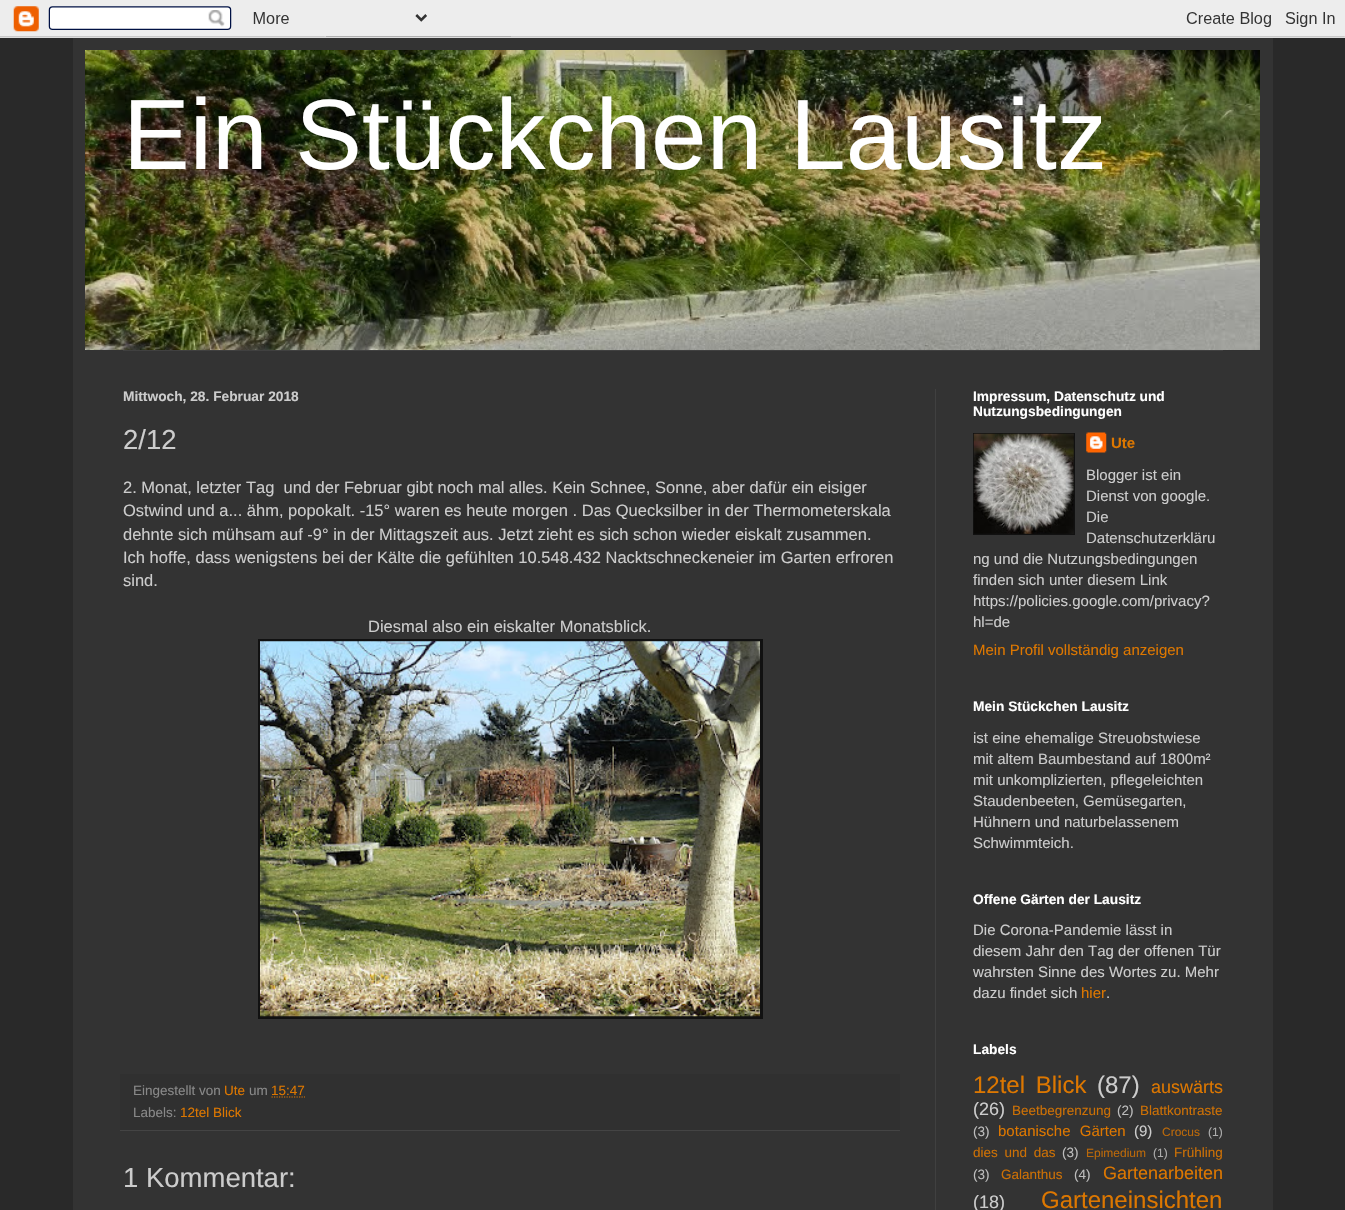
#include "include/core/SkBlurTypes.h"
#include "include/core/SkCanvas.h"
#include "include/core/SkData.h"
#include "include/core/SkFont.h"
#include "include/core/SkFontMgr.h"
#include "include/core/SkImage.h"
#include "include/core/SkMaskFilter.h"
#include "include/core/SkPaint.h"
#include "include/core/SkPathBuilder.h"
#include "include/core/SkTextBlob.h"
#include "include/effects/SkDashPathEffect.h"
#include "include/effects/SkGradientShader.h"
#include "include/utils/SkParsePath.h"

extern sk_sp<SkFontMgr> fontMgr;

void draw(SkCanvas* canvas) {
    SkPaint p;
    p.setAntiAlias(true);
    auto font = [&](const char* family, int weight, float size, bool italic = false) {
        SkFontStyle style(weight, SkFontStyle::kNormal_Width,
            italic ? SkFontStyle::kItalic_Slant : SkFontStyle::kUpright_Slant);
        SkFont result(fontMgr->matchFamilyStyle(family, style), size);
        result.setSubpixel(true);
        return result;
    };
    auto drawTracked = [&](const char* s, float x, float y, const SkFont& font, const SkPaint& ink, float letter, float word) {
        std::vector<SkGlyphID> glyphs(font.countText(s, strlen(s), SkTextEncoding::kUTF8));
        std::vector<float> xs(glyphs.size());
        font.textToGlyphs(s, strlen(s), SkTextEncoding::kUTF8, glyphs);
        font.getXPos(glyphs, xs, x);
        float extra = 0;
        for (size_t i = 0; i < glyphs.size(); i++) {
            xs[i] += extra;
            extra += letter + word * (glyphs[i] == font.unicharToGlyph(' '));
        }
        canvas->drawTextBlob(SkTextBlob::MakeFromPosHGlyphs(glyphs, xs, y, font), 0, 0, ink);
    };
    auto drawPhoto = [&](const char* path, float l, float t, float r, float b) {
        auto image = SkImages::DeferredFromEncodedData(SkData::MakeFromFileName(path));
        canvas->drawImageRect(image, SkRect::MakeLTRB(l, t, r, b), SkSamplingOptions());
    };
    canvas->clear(0xFF292929);
    drawPhoto("media/1.png", 0, 0, 1345, 38);
    p.setColor(0xFF333333);
    canvas->drawRect(SkRect::MakeLTRB(73, 38, 1273, 1210), p);
    drawPhoto("media/2.png", 85, 50, 1260, 350);
    auto font1 = font("Liberation Sans", 400, 100);
    p.setColor(0xFFFFFFFF);
    canvas->drawString("Ein Stückchen Lausitz", 123, 169, font1, p);
    p.setColor(0xFF404040);
    canvas->drawRect(SkRect::MakeLTRB(123, 350, 1223, 351), p);
    canvas->drawRect(SkRect::MakeLTRB(935, 389, 936, 1210), p);
    auto font2 = font("Liberation Sans", 700, 13.75f);
    p.setColor(0xFFCCCCCC);
    canvas->drawString("Mittwoch, 28. Februar 2018", 123, 401, font2, p);
    auto font3 = font("Liberation Sans", 400, 27.5f);
    canvas->drawString("2/12", 123, 449, font3, p);
    auto font4 = font("Liberation Sans", 400, 16.5f);
    {
        const struct { const char* s; float x, y; } items[] = {
            {"2. Monat, letzter Tag  und der Februar gibt noch mal alles. Kein Schnee, Sonne, aber dafür ein eisiger", 123, 493},
            {"Ostwind und a... ähm, popokalt. -15° waren es heute morgen . Das Quecksilber in der Thermometerskala", 123, 516},
            {"dehnte sich mühsam auf -9° in der Mittagszeit aus. Jetzt zieht es sich schon wieder eiskalt zusammen.", 123, 540},
            {"Ich hoffe, dass wenigstens bei der Kälte die gefühlten 10.548.432 Nacktschneckeneier im Garten erfroren", 123, 563},
            {"sind.", 123, 586},
            {"Diesmal also ein eiskalter Monatsblick.", 368, 632},
        };
        for (auto [s, x, y] : items) {
            canvas->drawString(s, x, y, font4, p);
        }
    }
    p.setColor(0xFF111111);
    canvas->drawRect(SkRect::MakeLTRB(258, 639, 763, 1019), p);
    drawPhoto("media/3.png", 260, 641, 760, 1017);
    p.setColor(0xFF303030);
    canvas->drawRect(SkRect::MakeLTRB(120, 1074, 900, 1130), p);
    p.setColor(0xFF444444);
    canvas->drawRect(SkRect::MakeLTRB(120, 1130, 900, 1131), p);
    auto font5 = font("Liberation Sans", 400, 13.5f);
    p.setColor(0xFF888888);
    canvas->drawString("Eingestellt von", 133, 1095, font5, p);
    p.setColor(0xFFDD7700);
    canvas->drawString("Ute", 224, 1095, font5, p);
    p.setColor(0xFF888888);
    canvas->drawString("um", 249, 1095, font5, p);
    p.setColor(0xFFDD7700);
    canvas->drawString("15:47", 271, 1095, font5, p);
    p.setStyle(SkPaint::kStroke_Style);
    p.setStrokeWidth(1.2f);
    p.setPathEffect(SkDashPathEffect::Make({{1.25f, 1.25f}}, 0));
    canvas->drawPath(SkPathBuilder().moveTo(271.5f, 1097).lineTo(305, 1097).detach(), p);
    p.setPathEffect(nullptr);
    p.setStyle(SkPaint::kFill_Style);
    p.setColor(0xFF888888);
    canvas->drawString("Labels:", 133, 1117, font5, p);
    p.setColor(0xFFDD7700);
    canvas->drawString("12tel Blick", 180, 1117, font5, p);
    p.setColor(0xFFCCCCCC);
    canvas->drawString("1 Kommentar:", 123, 1187, font3, p);
    p.setColor(0xFFFFFFFF);
    canvas->drawString("Impressum, Datenschutz und", 973, 401, font2, p);
    canvas->drawString("Nutzungsbedingungen", 973, 416, font2, p);
    p.setColor(0xFF111111);
    canvas->drawRect(SkRect::MakeLTRB(973, 433, 1075, 535), p);
    drawPhoto("media/4.png", 973, 433, 1074, 534);
    drawPhoto("media/5.png", 1086, 432, 1107, 453);
    auto font6 = font("Liberation Sans", 700, 15);
    p.setColor(0xFFDD7700);
    canvas->drawString("Ute", 1111, 448, font6, p);
    auto font7 = font("Liberation Sans", 400, 15);
    p.setColor(0xFFCCCCCC);
    {
        const struct { const char* s; float x, y; } items[] = {
            {"Blogger ist ein", 1086, 480},
            {"Dienst von google.", 1086, 501},
            {"Die", 1086, 522},
            {"Datenschutzerkläru", 1086, 543},
            {"ng und die Nutzungsbedingungen", 973, 564},
            {"finden sich unter diesem Link", 973, 585},
            {"https://policies.google.com/privacy?", 973, 606},
            {"hl=de", 973, 627},
        };
        for (auto [s, x, y] : items) {
            canvas->drawString(s, x, y, font7, p);
        }
    }
    p.setColor(0xFFDD7700);
    canvas->drawString("Mein Profil vollständig anzeigen", 973, 655, font7, p);
    p.setColor(0xFFFFFFFF);
    canvas->drawString("Mein Stückchen Lausitz", 973, 711, font2, p);
    p.setColor(0xFFCCCCCC);
    {
        const struct { const char* s; float x, y; } items[] = {
            {"ist eine ehemalige Streuobstwiese", 973, 743},
            {"mit altem Baumbestand auf 1800m²", 973, 764},
            {"mit unkomplizierten, pflegeleichten", 973, 785},
            {"Staudenbeeten, Gemüsegarten,", 973, 806},
            {"Hühnern und naturbelassenem", 973, 827},
            {"Schwimmteich.", 973, 848},
        };
        for (auto [s, x, y] : items) {
            canvas->drawString(s, x, y, font7, p);
        }
    }
    p.setColor(0xFFFFFFFF);
    canvas->drawString("Offene Gärten der Lausitz", 973, 904, font2, p);
    p.setColor(0xFFCCCCCC);
    {
        const struct { const char* s; float x, y; } items[] = {
            {"Die Corona-Pandemie lässt in", 973, 935},
            {"diesem Jahr den Tag der offenen Tür", 973, 956},
            {"wahrsten Sinne des Wortes zu. Mehr", 973, 977},
            {"dazu findet sich", 973, 998},
        };
        for (auto [s, x, y] : items) {
            canvas->drawString(s, x, y, font7, p);
        }
    }
    p.setColor(0xFFDD7700);
    canvas->drawString("hier", 1081, 998, font7, p);
    p.setColor(0xFFCCCCCC);
    canvas->drawString(".", 1106, 998, font7, p);
    p.setColor(0xFFFFFFFF);
    canvas->drawString("Labels", 973, 1054, font2, p);
    auto font8 = font("Liberation Sans", 400, 24);
    p.setColor(0xFFDD7700);
    drawTracked("12tel Blick", 973, 1093, font8, p, 0, 4);
    p.setColor(0xFFCCCCCC);
    canvas->drawString("(87)", 1097, 1093, font8, p);
    auto font9 = font("Liberation Sans", 400, 18);
    p.setColor(0xFFDD7700);
    canvas->drawString("auswärts", 1151, 1093, font9, p);
    p.setColor(0xFFCCCCCC);
    canvas->drawString("(26)", 973, 1115, font9, p);
    p.setColor(0xFFCC7005);
    canvas->drawString("Beetbegrenzung", 1012, 1115, font5, p);
    p.setColor(0xFFBDBDBD);
    canvas->drawString("(2)", 1117, 1115, font5, p);
    p.setColor(0xFFCC7005);
    canvas->drawString("Blattkontraste", 1140, 1115, font5, p);
    p.setColor(0xFFBDBDBD);
    canvas->drawString("(3)", 973, 1136, font5, p);
    p.setColor(0xFFDD7700);
    drawTracked("botanische Gärten", 998, 1136, font7, p, 0, 5);
    p.setColor(0xFFCCCCCC);
    canvas->drawString("(9)", 1134, 1136, font7, p);
    auto font10 = font("Liberation Sans", 400, 12);
    p.setColor(0xFFBB690A);
    canvas->drawString("Crocus", 1162, 1136, font10, p);
    p.setColor(0xFFADADAD);
    canvas->drawString("(1)", 1208, 1136, font10, p);
    p.setColor(0xFFCC7005);
    drawTracked("dies und das", 973, 1157, font5, p, 0, 3);
    p.setColor(0xFFBDBDBD);
    canvas->drawString("(3)", 1062, 1157, font5, p);
    p.setColor(0xFFBB690A);
    canvas->drawString("Epimedium", 1086, 1157, font10, p);
    p.setColor(0xFFADADAD);
    canvas->drawString("(1)", 1153, 1157, font10, p);
    p.setColor(0xFFCC7005);
    canvas->drawString("Frühling", 1174, 1157, font5, p);
    p.setColor(0xFFBDBDBD);
    canvas->drawString("(3)", 973, 1179, font5, p);
    p.setColor(0xFFCC7005);
    canvas->drawString("Galanthus", 1001, 1179, font5, p);
    p.setColor(0xFFBDBDBD);
    canvas->drawString("(4)", 1074, 1179, font5, p);
    p.setColor(0xFFDD7700);
    canvas->drawString("Gartenarbeiten", 1103, 1179, font9, p);
    p.setColor(0xFFCCCCCC);
    canvas->drawString("(18)", 973, 1208, font9, p);
    p.setColor(0xFFDD7700);
    canvas->drawString("Garteneinsichten", 1041, 1208, font8, p);
}
